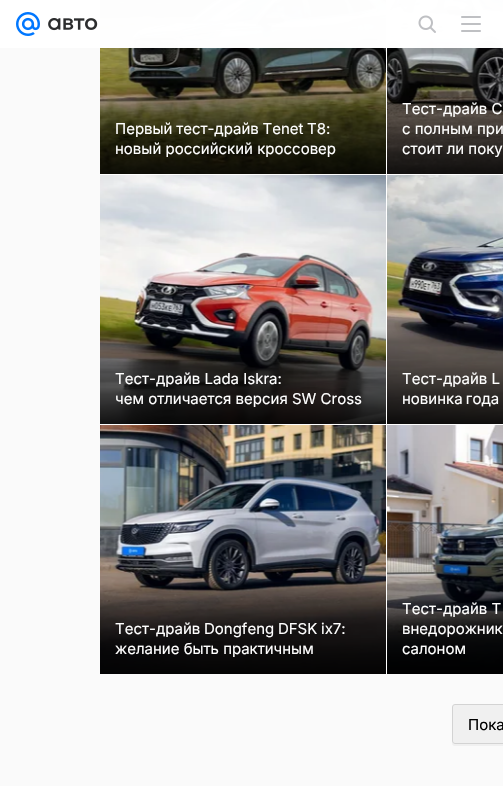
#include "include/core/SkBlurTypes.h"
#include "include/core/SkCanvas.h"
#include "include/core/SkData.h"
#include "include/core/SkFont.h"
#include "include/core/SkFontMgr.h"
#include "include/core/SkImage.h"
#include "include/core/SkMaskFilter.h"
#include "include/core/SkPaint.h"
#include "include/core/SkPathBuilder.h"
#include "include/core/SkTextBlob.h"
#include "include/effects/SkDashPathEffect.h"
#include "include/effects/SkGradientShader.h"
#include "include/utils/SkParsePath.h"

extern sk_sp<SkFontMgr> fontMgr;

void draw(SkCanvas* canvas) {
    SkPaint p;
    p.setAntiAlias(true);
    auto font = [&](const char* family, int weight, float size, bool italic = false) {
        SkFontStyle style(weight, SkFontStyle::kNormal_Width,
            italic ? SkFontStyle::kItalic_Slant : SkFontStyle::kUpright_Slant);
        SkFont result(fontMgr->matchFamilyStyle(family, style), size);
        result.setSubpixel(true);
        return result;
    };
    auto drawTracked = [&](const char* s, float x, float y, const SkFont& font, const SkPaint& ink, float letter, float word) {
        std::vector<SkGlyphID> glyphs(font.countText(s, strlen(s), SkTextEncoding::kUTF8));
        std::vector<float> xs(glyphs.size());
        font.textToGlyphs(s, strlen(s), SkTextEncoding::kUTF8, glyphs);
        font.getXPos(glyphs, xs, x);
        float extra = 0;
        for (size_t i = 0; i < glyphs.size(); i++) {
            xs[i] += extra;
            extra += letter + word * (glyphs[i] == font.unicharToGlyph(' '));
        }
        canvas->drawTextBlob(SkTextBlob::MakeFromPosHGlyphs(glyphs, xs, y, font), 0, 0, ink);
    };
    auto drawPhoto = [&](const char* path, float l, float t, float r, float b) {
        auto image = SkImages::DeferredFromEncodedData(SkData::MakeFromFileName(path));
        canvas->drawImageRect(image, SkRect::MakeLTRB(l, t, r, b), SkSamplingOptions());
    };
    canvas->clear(0xFFFAFAFA);
    drawPhoto("media/5.png", 100, 0, 386, 174);
    p.setColor(0xFFFFFFFF);
    canvas->drawRect(SkRect::MakeLTRB(386, 0, 387, 174), p);
    drawPhoto("media/6.png", 387, 0, 503, 174);
    p.setColor(0xE6FFFFFF);
    canvas->drawRect(SkRect::MakeLTRB(0, 0, 503, 48), p);
    canvas->drawRect(SkRect::MakeLTRB(100, 0, 503, 48), p);
    drawPhoto("media/1.png", 16, 12, 40, 36);
    drawPhoto("media/2.png", 48, 18, 98, 31);
    drawPhoto("media/3.png", 418, 15, 436, 33);
    drawPhoto("media/4.png", 461, 16, 481, 32);
    auto font1 = font("Inter", 400, 15);
    p.setColor(0xFFFFFFFF);
    drawTracked("Первый тест-драйв Tenet T8:", 115, 134, font1, p, 0, -0.5f);
    canvas->drawString("новый российский кроссовер", 115, 154, font1, p);
    {
        const SkColor colors[] = {0x00000000, 0x3D000000, 0xE0000000};
        const float stops[] = {0, 0.16f, 1};
        const SkPoint ends[] = {{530, 59}, {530, 174}};
        p.setShader(SkGradientShader::MakeLinear(ends, colors, stops, 3, SkTileMode::kClamp));
        p.setAlpha(255);
    }
    canvas->drawRect(SkRect::MakeLTRB(387, 61, 503, 174), p);
    p.setShader(nullptr);
    p.setColor(0xFFFFFFFF);
    {
        const struct { const char* s; float x, y; } items[] = {
            {"Тест-драйв C", 402, 114},
            {"с полным при", 402, 134},
            {"стоит ли поку", 402, 154},
        };
        for (auto [s, x, y] : items) {
            canvas->drawString(s, x, y, font1, p);
        }
    }
    canvas->drawRect(SkRect::MakeLTRB(100, 174, 503, 175), p);
    drawPhoto("media/7.png", 100, 175, 386, 424);
    canvas->drawString("Тест-драйв Lada Iskra:", 115, 384, font1, p);
    canvas->drawString("чем отличается версия SW Cross", 115, 404, font1, p);
    canvas->drawRect(SkRect::MakeLTRB(386, 174, 387, 424), p);
    drawPhoto("media/8.png", 387, 175, 503, 424);
    {
        const SkColor colors[] = {0x00000000, 0x3D000000, 0xE0000000};
        const float stops[] = {0, 0.16f, 1};
        const SkPoint ends[] = {{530, 329}, {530, 424}};
        p.setShader(SkGradientShader::MakeLinear(ends, colors, stops, 3, SkTileMode::kClamp));
        p.setAlpha(255);
    }
    canvas->drawRect(SkRect::MakeLTRB(387, 330, 503, 424), p);
    p.setShader(nullptr);
    p.setColor(0xFFFFFFFF);
    canvas->drawString("Тест-драйв L", 402, 384, font1, p);
    drawTracked("новинка года", 402, 404, font1, p, 0, -1);
    canvas->drawRect(SkRect::MakeLTRB(100, 424, 503, 425), p);
    drawPhoto("media/9.png", 100, 425, 386, 674);
    drawTracked("Тест-драйв Dongfeng DFSK ix7:", 115, 634, font1, p, 0, -0.5f);
    canvas->drawString("желание быть практичным", 115, 654, font1, p);
    canvas->drawRect(SkRect::MakeLTRB(386, 424, 387, 674), p);
    drawPhoto("media/10.png", 387, 425, 503, 674);
    {
        const SkColor colors[] = {0x00000000, 0x3D000000, 0xE0000000};
        const float stops[] = {0, 0.16f, 1};
        const SkPoint ends[] = {{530, 559}, {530, 674}};
        p.setShader(SkGradientShader::MakeLinear(ends, colors, stops, 3, SkTileMode::kClamp));
        p.setAlpha(255);
    }
    canvas->drawRect(SkRect::MakeLTRB(387, 561, 503, 674), p);
    p.setShader(nullptr);
    p.setColor(0xFFFFFFFF);
    canvas->drawString("Тест-драйв T", 402, 614, font1, p);
    drawTracked("внедорожник", 402, 634, font1, p, 0, -1);
    canvas->drawString("салоном", 402, 654, font1, p);
    p.setColor(0xFFF0F0F0);
    canvas->drawPath(SkPathBuilder().moveTo(452, 741).lineTo(452, 743).cubicTo(452, 745, 453, 746, 455, 746).lineTo(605, 746).cubicTo(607, 746, 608, 745, 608, 743).lineTo(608, 741).lineTo(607, 743).lineTo(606, 744).lineTo(455, 744).cubicTo(453, 744, 452, 743, 452, 741).close().detach(), p);
    canvas->drawRoundRect(SkRect::MakeLTRB(452.5f, 704.5f, 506.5f, 743.5f), 2.5f, 2.5f, p);
    p.setStyle(SkPaint::kStroke_Style);
    p.setStrokeWidth(1);
    p.setColor(0xFFD3D3D3);
    canvas->drawRoundRect(SkRect::MakeLTRB(452.5f, 704.5f, 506.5f, 743.5f), 2.5f, 2.5f, p);
    p.setStyle(SkPaint::kFill_Style);
    p.setColor(0xFF000000);
    canvas->drawString("Пока", 468, 730, font1, p);
}
